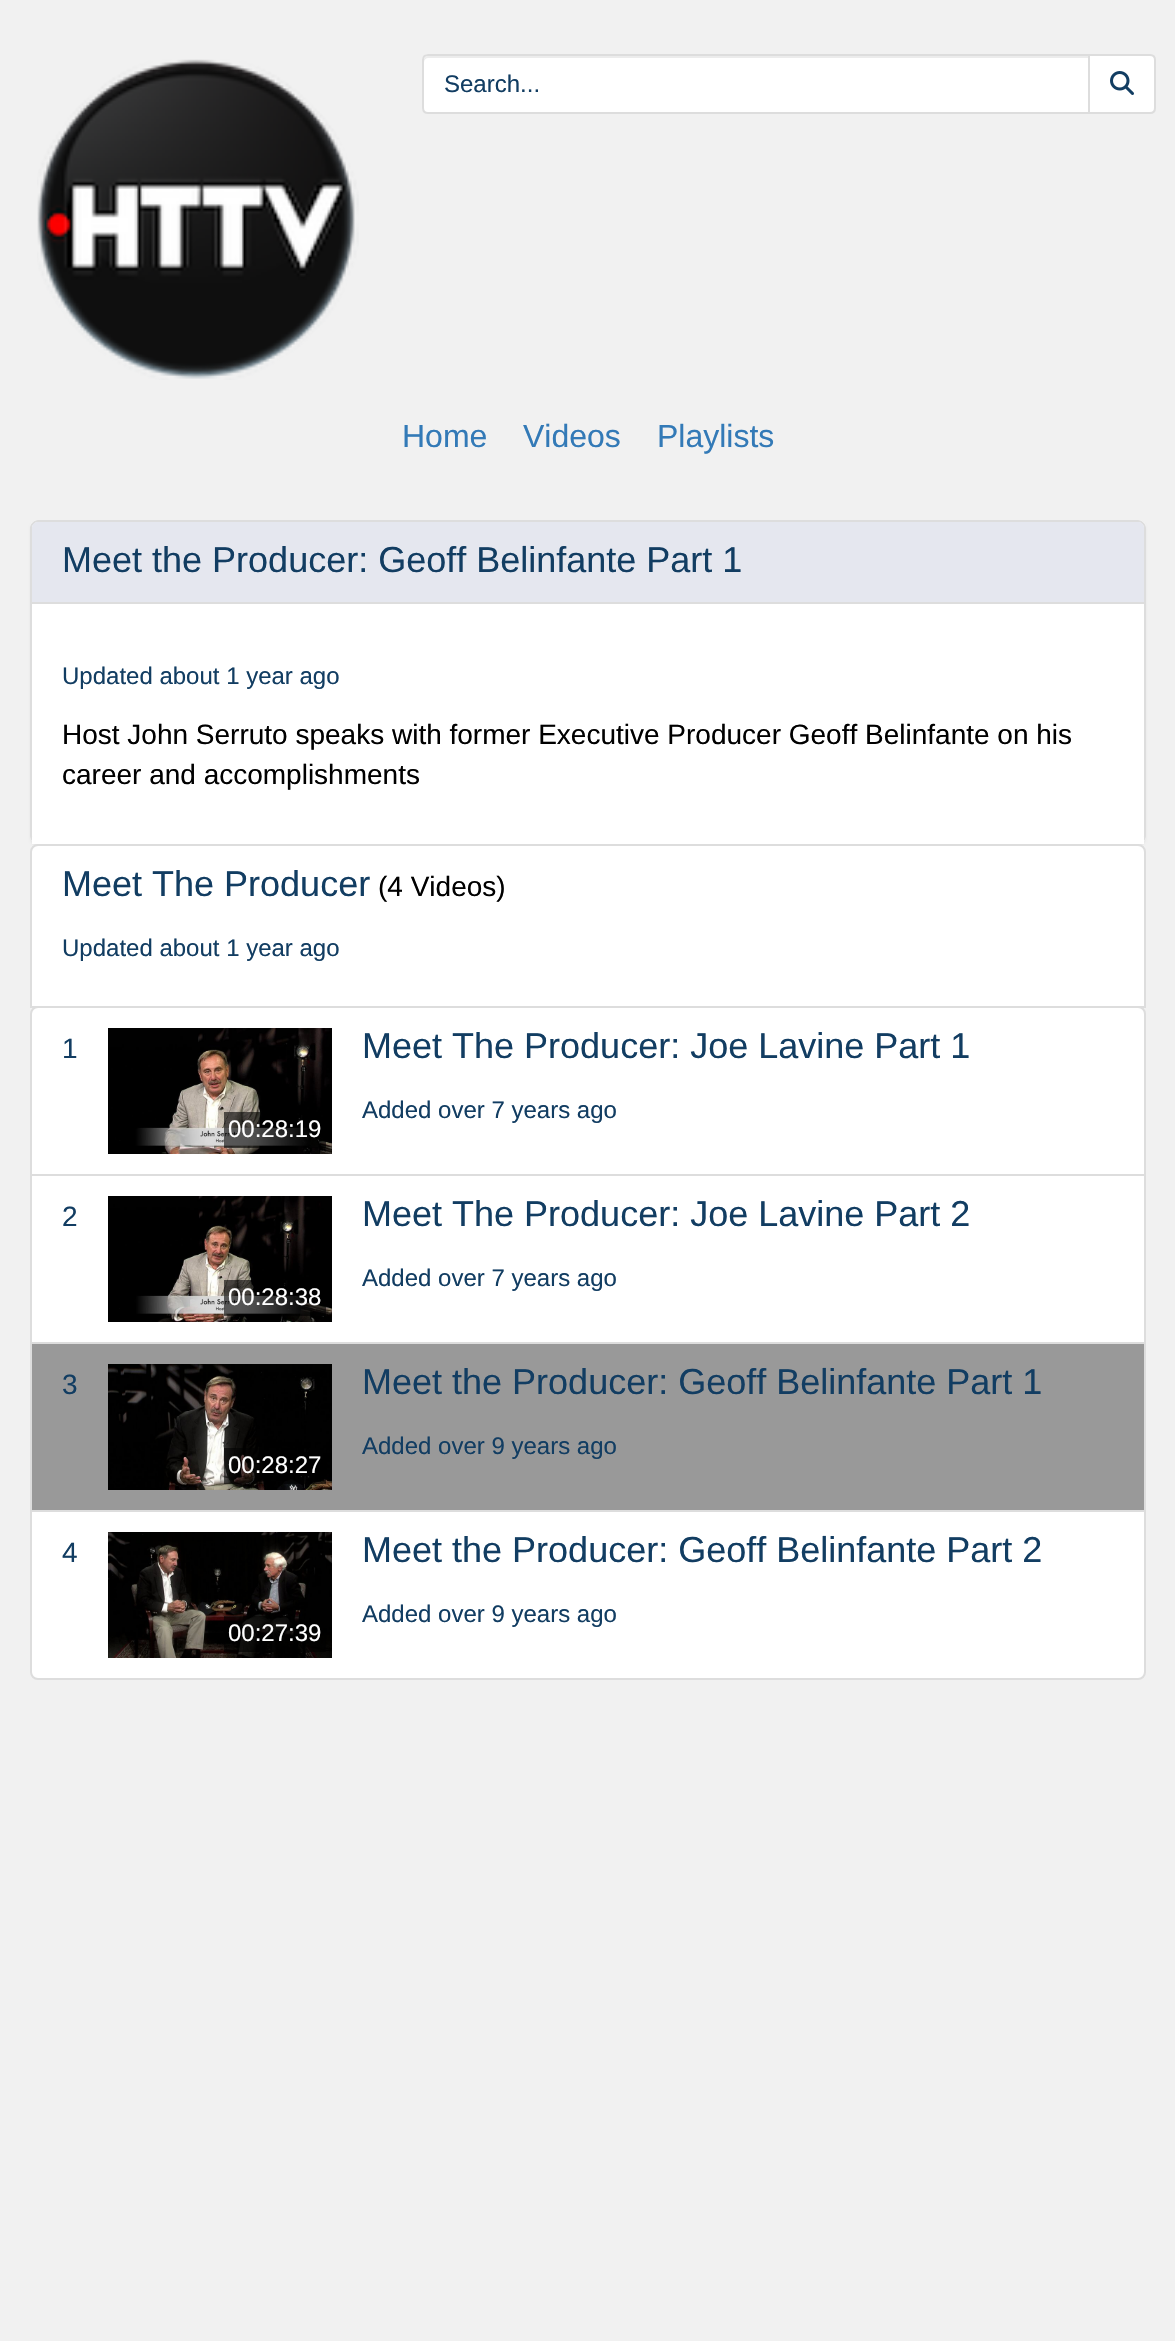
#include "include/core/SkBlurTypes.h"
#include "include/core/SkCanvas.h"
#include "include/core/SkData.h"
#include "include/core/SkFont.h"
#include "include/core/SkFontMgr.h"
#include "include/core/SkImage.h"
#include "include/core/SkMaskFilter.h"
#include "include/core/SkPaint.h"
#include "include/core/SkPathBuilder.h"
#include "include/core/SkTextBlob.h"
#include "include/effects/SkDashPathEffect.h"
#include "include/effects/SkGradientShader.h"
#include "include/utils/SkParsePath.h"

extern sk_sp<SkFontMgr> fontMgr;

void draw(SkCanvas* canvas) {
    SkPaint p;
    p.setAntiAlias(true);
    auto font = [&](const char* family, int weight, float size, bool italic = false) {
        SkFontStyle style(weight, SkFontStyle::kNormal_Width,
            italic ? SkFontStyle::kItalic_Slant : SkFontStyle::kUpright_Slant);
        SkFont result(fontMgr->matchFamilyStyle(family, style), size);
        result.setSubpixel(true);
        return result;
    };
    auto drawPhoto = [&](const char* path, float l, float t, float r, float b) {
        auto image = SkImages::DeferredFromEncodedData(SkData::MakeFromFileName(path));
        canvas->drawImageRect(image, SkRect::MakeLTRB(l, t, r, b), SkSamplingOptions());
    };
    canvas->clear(0xFFF1F1F1);
    drawPhoto("media/1.png", 37, 59, 359, 380);
    p.setColor(0xFFFFFFFF);
    canvas->drawPath(SkPathBuilder().moveTo(428, 54).lineTo(1090, 54).lineTo(1090, 114).lineTo(428, 114).cubicTo(424.5f, 114, 422, 111.5f, 422, 108).lineTo(422, 60).cubicTo(422, 56.5f, 424.5f, 54, 428, 54).close().detach(), p);
    p.setColor(0xFFECECEC);
    canvas->drawPath(SkPathBuilder().moveTo(428, 58).lineTo(1088, 58).lineTo(1088, 56).lineTo(428, 56).cubicTo(426, 56, 424, 58, 424, 60).lineTo(424, 62).cubicTo(424, 60, 426, 58, 428, 58).close().detach(), p);
    p.setStyle(SkPaint::kStroke_Style);
    p.setStrokeWidth(2);
    p.setColor(0xFFDDDDDD);
    canvas->drawPath(SkPathBuilder().moveTo(428, 55).lineTo(1089, 55).lineTo(1089, 113).lineTo(428, 113).cubicTo(425, 113, 423, 111, 423, 108).lineTo(423, 60).cubicTo(423, 57, 425, 55, 428, 55).close().detach(), p);
    auto font1 = font("Liberation Sans", 400, 24);
    p.setStyle(SkPaint::kFill_Style);
    p.setColor(0xFF123D62);
    canvas->drawString("Search...", 444, 92, font1, p);
    p.setColor(0xFFFFFFFF);
    canvas->drawPath(SkPathBuilder().moveTo(1089, 55).lineTo(1150, 55).cubicTo(1153, 55, 1155, 57, 1155, 60).lineTo(1155, 108).cubicTo(1155, 111, 1153, 113, 1150, 113).lineTo(1089, 113).close().detach(), p);
    p.setStyle(SkPaint::kStroke_Style);
    p.setColor(0xFFDDDDDD);
    canvas->drawPath(SkPathBuilder().moveTo(1089, 55).lineTo(1150, 55).cubicTo(1153, 55, 1155, 57, 1155, 60).lineTo(1155, 108).cubicTo(1155, 111, 1153, 113, 1150, 113).lineTo(1089, 113).close().detach(), p);
    drawPhoto("media/2.png", 1110, 71, 1134, 95);
    auto font2 = font("Liberation Sans", 400, 32);
    p.setStyle(SkPaint::kFill_Style);
    p.setColor(0xFF337AB7);
    {
        const struct { const char* s; float x, y; } items[] = {
            {"Home", 402, 447},
            {"Videos", 523, 447},
            {"Playlists", 657, 447},
        };
        for (auto [s, x, y] : items) {
            canvas->drawString(s, x, y, font2, p);
        }
    }
    p.setColor(0x0D000000);
    p.setMaskFilter(SkMaskFilter::MakeBlur(kNormal_SkBlurStyle, 1));
    canvas->drawRoundRect(SkRect::MakeLTRB(30, 522, 1146, 846), 8, 8, p);
    p.setMaskFilter(nullptr);
    p.setColor(0xFFFFFFFF);
    canvas->drawRoundRect(SkRect::MakeLTRB(30, 520, 1146, 844), 8, 8, p);
    p.setColor(0xFFDDDDDD);
    canvas->drawPath(SkPathBuilder(SkPathFillType::kEvenOdd).moveTo(38, 520).lineTo(1138, 520).cubicTo(1142, 520, 1146, 524, 1146, 528).lineTo(1146, 836).cubicTo(1146, 840, 1142, 844, 1138, 844).lineTo(38, 844).cubicTo(34, 844, 30, 840, 30, 836).lineTo(30, 528).cubicTo(30, 524, 34, 520, 38, 520).close().moveTo(38, 522).lineTo(1138, 522).cubicTo(1141, 522, 1144, 525, 1144, 528).lineTo(1144, 836).cubicTo(1144, 840, 1141, 844, 1138, 844).lineTo(38, 844).cubicTo(35, 844, 32, 840, 32, 836).lineTo(32, 528).cubicTo(32, 525, 35, 522, 38, 522).close().detach(), p);
    p.setColor(0xFFE5E7EF);
    canvas->drawPath(SkPathBuilder().moveTo(38, 522).lineTo(1138, 522).cubicTo(1141.5f, 522, 1144, 524.5f, 1144, 528).lineTo(1144, 604).lineTo(32, 604).lineTo(32, 528).cubicTo(32, 524.5f, 34.5f, 522, 38, 522).close().detach(), p);
    p.setColor(0xFFDDDDDD);
    canvas->drawRect(SkRect::MakeLTRB(32, 602, 1144, 604), p);
    auto font3 = font("Liberation Sans", 400, 36);
    p.setColor(0xFF123D62);
    canvas->drawString("Meet the Producer: Geoff Belinfante Part 1", 62, 572, font3, p);
    p.setColor(0xFFFFFFFF);
    canvas->drawRect(SkRect::MakeLTRB(32, 837, 1144, 844), p);
    p.setColor(0xFF123D62);
    canvas->drawString("Updated about 1 year ago", 62, 684, font1, p);
    auto font4 = font("Liberation Sans", 400, 28);
    p.setColor(0xFF000000);
    canvas->drawString("Host John Serruto speaks with former Executive Producer Geoff Belinfante on his", 62, 744, font4, p);
    canvas->drawString("career and accomplishments", 62, 784, font4, p);
    p.setColor(0xFFFFFFFF);
    canvas->drawPath(SkPathBuilder().moveTo(38, 845).lineTo(1138, 845).cubicTo(1142, 845, 1145, 848, 1145, 852).lineTo(1145, 1007).lineTo(31, 1007).lineTo(31, 852).cubicTo(31, 848, 34, 845, 38, 845).close().detach(), p);
    p.setStyle(SkPaint::kStroke_Style);
    p.setColor(0xFFDDDDDD);
    canvas->drawPath(SkPathBuilder().moveTo(38, 845).lineTo(1138, 845).cubicTo(1142, 845, 1145, 848, 1145, 852).lineTo(1145, 1007).lineTo(31, 1007).lineTo(31, 852).cubicTo(31, 848, 34, 845, 38, 845).close().detach(), p);
    p.setStyle(SkPaint::kFill_Style);
    p.setColor(0xFF123D62);
    canvas->drawString("Meet The Producer", 62, 896, font3, p);
    p.setColor(0xFF000000);
    canvas->drawString("(4 Videos)", 378, 896, font4, p);
    p.setColor(0xFF123D62);
    canvas->drawString("Updated about 1 year ago", 62, 956, font1, p);
    p.setColor(0xFFFFFFFF);
    canvas->drawPath(SkPathBuilder().moveTo(38, 1007).lineTo(1138, 1007).cubicTo(1142, 1007, 1145, 1010, 1145, 1014).lineTo(1145, 1175).lineTo(31, 1175).lineTo(31, 1014).cubicTo(31, 1010, 34, 1007, 38, 1007).close().detach(), p);
    p.setStyle(SkPaint::kStroke_Style);
    p.setColor(0xFFDDDDDD);
    canvas->drawPath(SkPathBuilder().moveTo(38, 1007).lineTo(1138, 1007).cubicTo(1142, 1007, 1145, 1010, 1145, 1014).lineTo(1145, 1175).lineTo(31, 1175).lineTo(31, 1014).cubicTo(31, 1010, 34, 1007, 38, 1007).close().detach(), p);
    p.setStyle(SkPaint::kFill_Style);
    p.setColor(0xFF123D62);
    canvas->drawString("1", 62, 1058, font4, p);
    canvas->drawString("Meet The Producer: Joe Lavine Part 1", 362, 1058, font3, p);
    canvas->drawString("Added over 7 years ago", 362, 1118, font1, p);
    drawPhoto("media/3.png", 108, 1028, 332, 1154);
    p.setColor(0x99000000);
    canvas->drawRect(SkRect::MakeLTRB(224, 1112, 326, 1148), p);
    p.setColor(0xFFFFFFFF);
    canvas->drawString("00:28:19", 228, 1137, font1, p);
    canvas->drawRect(SkRect::MakeLTRB(31, 1175, 1145, 1343), p);
    p.setStyle(SkPaint::kStroke_Style);
    p.setColor(0xFFDDDDDD);
    canvas->drawRect(SkRect::MakeLTRB(31, 1175, 1145, 1343), p);
    p.setStyle(SkPaint::kFill_Style);
    p.setColor(0xFF123D62);
    canvas->drawString("2", 62, 1226, font4, p);
    canvas->drawString("Meet The Producer: Joe Lavine Part 2", 362, 1226, font3, p);
    canvas->drawString("Added over 7 years ago", 362, 1286, font1, p);
    drawPhoto("media/4.png", 108, 1196, 332, 1322);
    p.setColor(0x99000000);
    canvas->drawRect(SkRect::MakeLTRB(224, 1280, 326, 1316), p);
    p.setColor(0xFFFFFFFF);
    canvas->drawString("00:28:38", 228, 1305, font1, p);
    canvas->drawPath(SkPathBuilder().moveTo(31, 1511).lineTo(1145, 1511).lineTo(1145, 1672).cubicTo(1145, 1676, 1142, 1679, 1138, 1679).lineTo(38, 1679).cubicTo(34, 1679, 31, 1676, 31, 1672).close().detach(), p);
    p.setStyle(SkPaint::kStroke_Style);
    p.setColor(0xFFDDDDDD);
    canvas->drawPath(SkPathBuilder().moveTo(31, 1511).lineTo(1145, 1511).lineTo(1145, 1672).cubicTo(1145, 1676, 1142, 1679, 1138, 1679).lineTo(38, 1679).cubicTo(34, 1679, 31, 1676, 31, 1672).close().detach(), p);
    p.setStyle(SkPaint::kFill_Style);
    p.setColor(0xFF999999);
    canvas->drawRect(SkRect::MakeLTRB(31, 1343, 1145, 1511), p);
    p.setStyle(SkPaint::kStroke_Style);
    p.setColor(0xFFDDDDDD);
    canvas->drawRect(SkRect::MakeLTRB(31, 1343, 1145, 1511), p);
    p.setStyle(SkPaint::kFill_Style);
    p.setColor(0xFF123D62);
    canvas->drawString("3", 62, 1394, font4, p);
    canvas->drawString("Meet the Producer: Geoff Belinfante Part 1", 362, 1394, font3, p);
    canvas->drawString("Added over 9 years ago", 362, 1454, font1, p);
    drawPhoto("media/5.png", 108, 1364, 332, 1490);
    p.setColor(0x99000000);
    canvas->drawRect(SkRect::MakeLTRB(224, 1448, 326, 1484), p);
    p.setColor(0xFFFFFFFF);
    canvas->drawString("00:28:27", 228, 1473, font1, p);
    p.setColor(0xFF123D62);
    canvas->drawString("4", 62, 1562, font4, p);
    canvas->drawString("Meet the Producer: Geoff Belinfante Part 2", 362, 1562, font3, p);
    canvas->drawString("Added over 9 years ago", 362, 1622, font1, p);
    drawPhoto("media/6.png", 108, 1532, 332, 1658);
    p.setColor(0x99000000);
    canvas->drawRect(SkRect::MakeLTRB(224, 1616, 326, 1652), p);
    p.setColor(0xFFFFFFFF);
    canvas->drawString("00:27:39", 228, 1641, font1, p);
}
